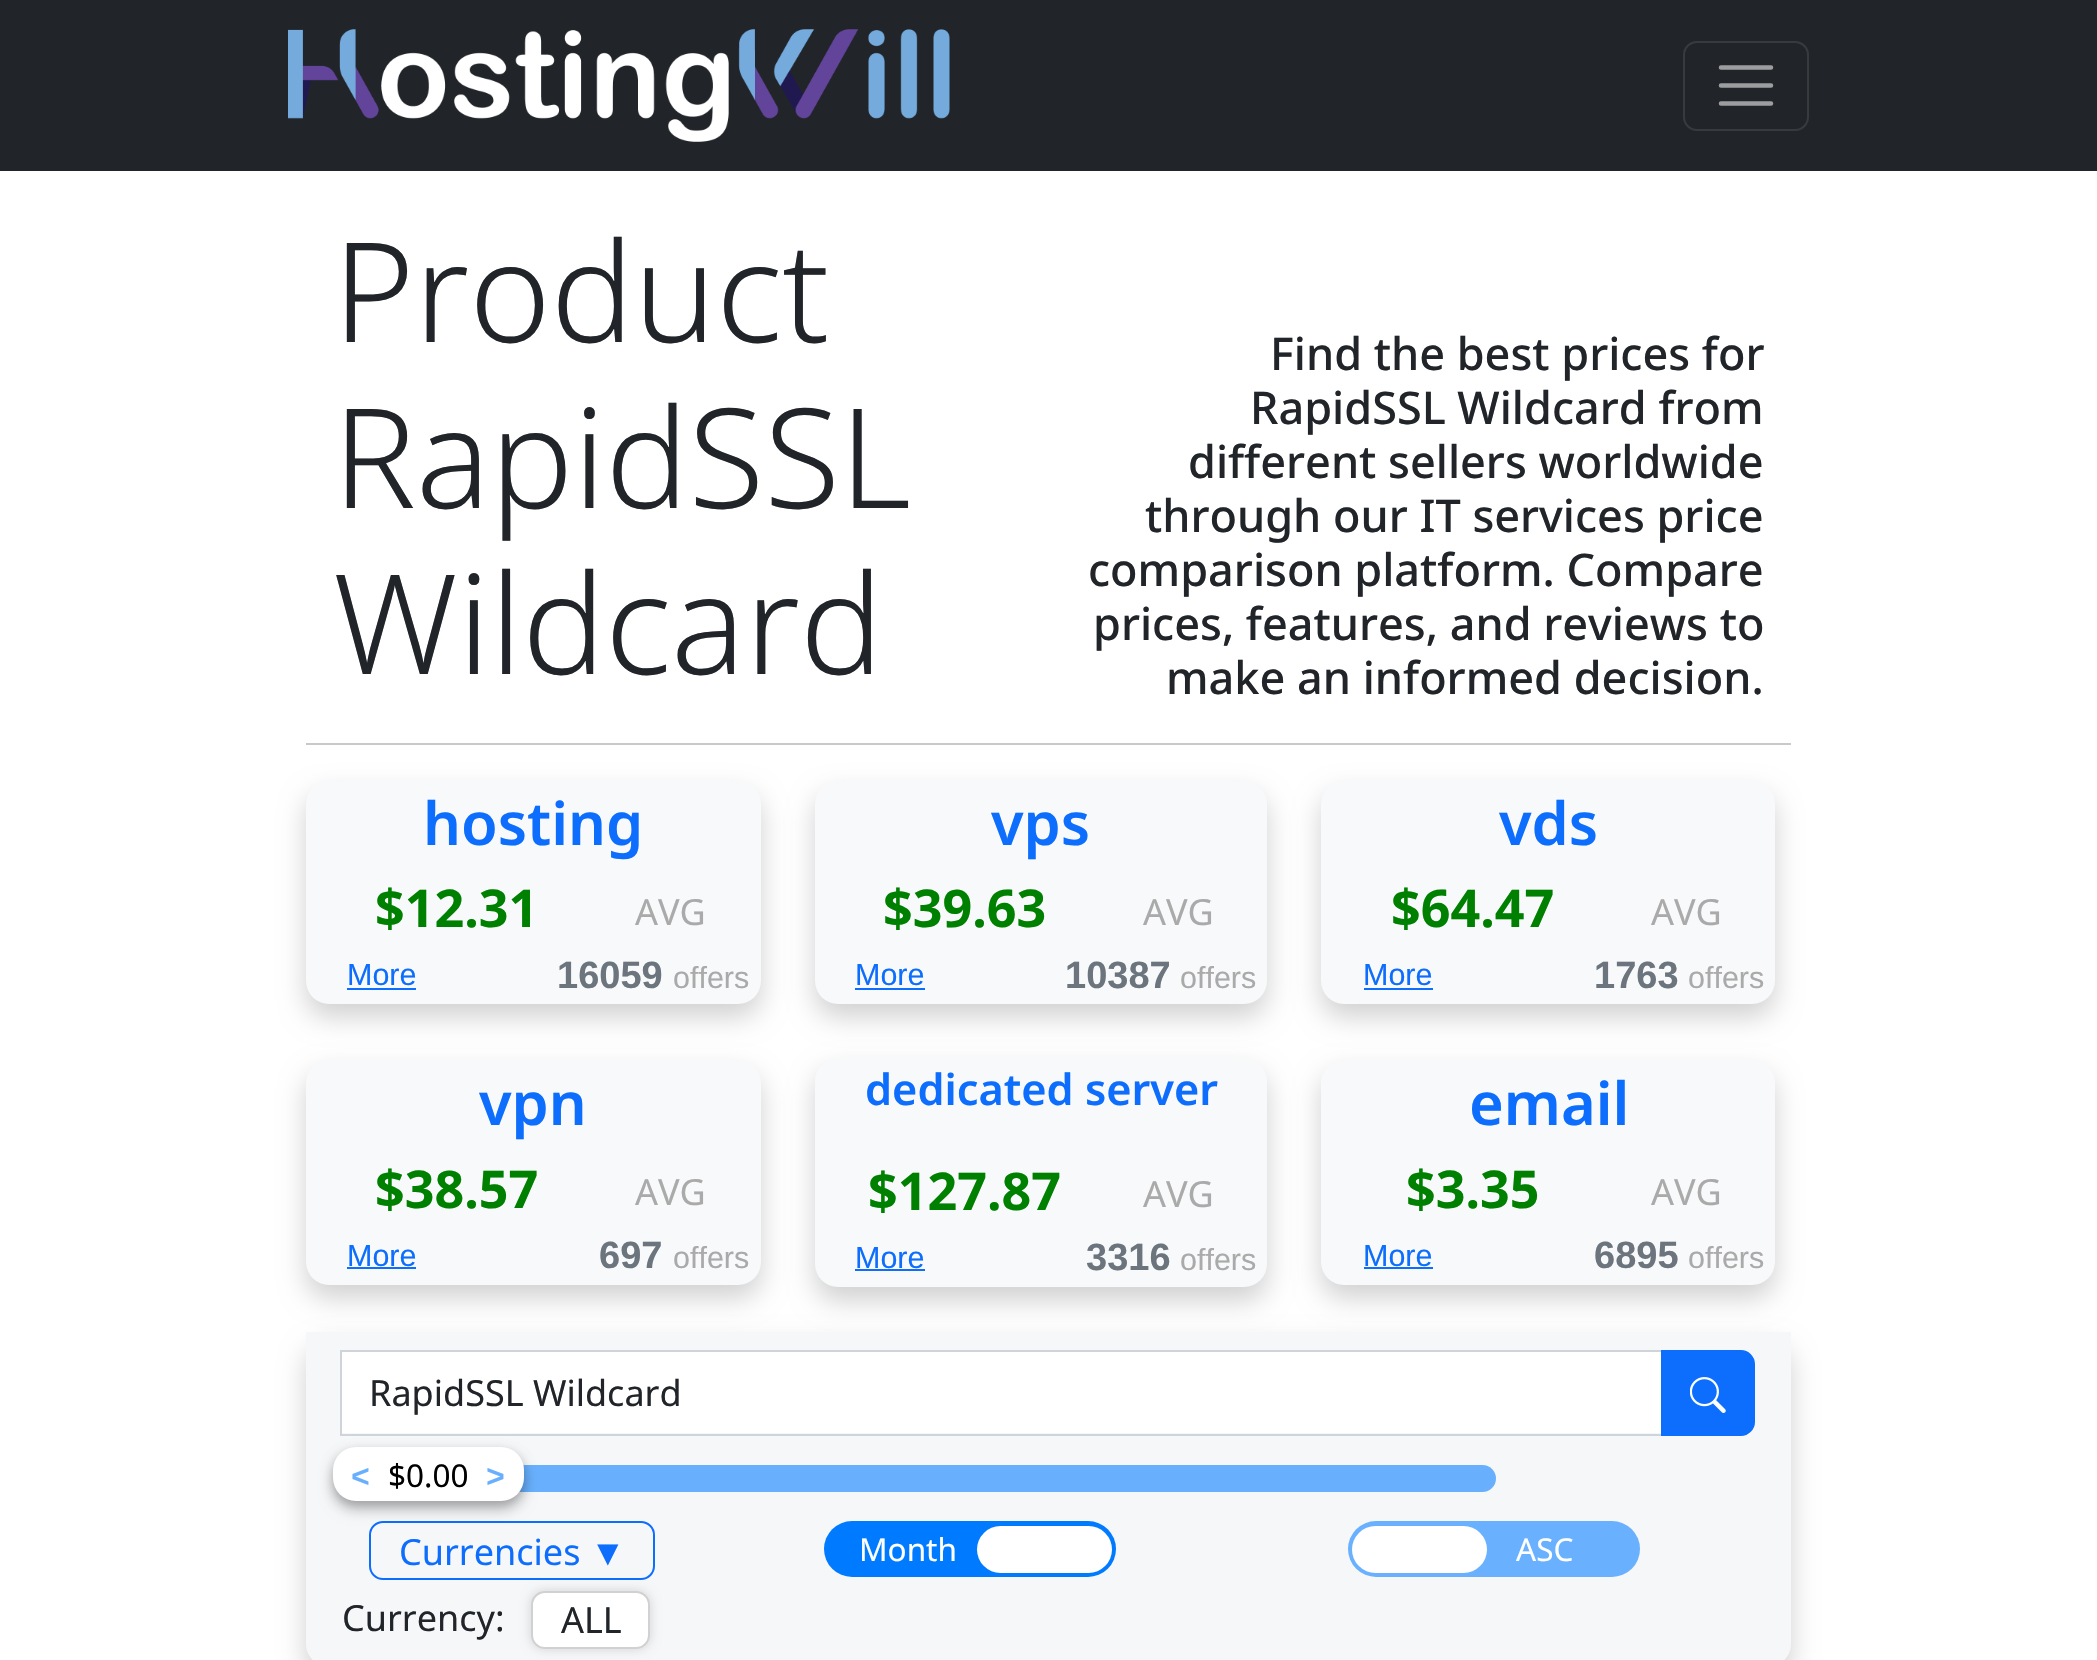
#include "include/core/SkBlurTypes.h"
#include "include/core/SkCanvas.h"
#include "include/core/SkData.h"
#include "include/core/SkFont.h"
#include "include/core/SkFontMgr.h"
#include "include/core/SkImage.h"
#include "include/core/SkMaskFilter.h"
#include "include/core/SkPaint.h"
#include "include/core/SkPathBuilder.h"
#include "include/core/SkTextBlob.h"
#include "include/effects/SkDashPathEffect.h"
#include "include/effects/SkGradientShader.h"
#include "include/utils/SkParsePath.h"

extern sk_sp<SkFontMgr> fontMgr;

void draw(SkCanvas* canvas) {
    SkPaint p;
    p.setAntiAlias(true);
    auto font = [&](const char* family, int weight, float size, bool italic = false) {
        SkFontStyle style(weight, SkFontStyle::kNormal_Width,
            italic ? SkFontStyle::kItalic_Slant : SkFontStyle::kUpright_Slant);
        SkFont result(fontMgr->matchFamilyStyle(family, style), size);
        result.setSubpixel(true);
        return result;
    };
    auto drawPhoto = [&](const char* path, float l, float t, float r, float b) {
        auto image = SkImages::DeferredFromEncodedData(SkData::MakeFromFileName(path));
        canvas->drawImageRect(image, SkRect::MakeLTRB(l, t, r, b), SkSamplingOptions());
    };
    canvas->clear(0xFFFFFFFF);
    p.setColor(0xFF212529);
    canvas->drawRect(SkRect::MakeLTRB(0, 0, 2097, 171), p);
    drawPhoto("media/1.png", 288, 29, 950, 142);
    p.setStyle(SkPaint::kStroke_Style);
    p.setStrokeWidth(2);
    p.setColor(0xFF373B3E);
    canvas->drawRoundRect(SkRect::MakeLTRB(1684, 42, 1808, 130), 13, 13, p);
    p.setStrokeWidth(4.5f);
    p.setStrokeCap(SkPaint::kRound_Cap);
    p.setColor(0xFF9B9D9F);
    canvas->drawPath(SkPathBuilder().moveTo(1721, 67.5f).lineTo(1771, 67.5f).moveTo(1721, 85.5f).lineTo(1771, 85.5f).moveTo(1721, 103.5f).lineTo(1771, 103.5f).detach(), p);
    auto font1 = font("Noto Sans", 300, 138.5f);
    p.setStyle(SkPaint::kFill_Style);
    p.setColor(0xFF212529);
    {
        const struct { const char* s; float x, y; } items[] = {
            {"Product", 333, 342},
            {"RapidSSL", 333, 508},
            {"Wildcard", 333, 674},
        };
        for (auto [s, x, y] : items) {
            canvas->drawString(s, x, y, font1, p);
        }
    }
    auto font2 = font("Noto Sans", 500, 45);
    {
        const struct { const char* s; float x, y; } items[] = {
            {"Find the best prices for", 1270, 370},
            {"RapidSSL Wildcard from", 1250, 424},
            {"different sellers worldwide", 1188, 478},
            {"through our IT services price", 1145, 532},
            {"comparison platform. Compare", 1088, 586},
            {"prices, features, and reviews to", 1093, 640},
            {"make an informed decision.", 1166, 694},
        };
        for (auto [s, x, y] : items) {
            canvas->drawString(s, x, y, font2, p);
        }
    }
    p.setColor(0xFFC8C9CA);
    canvas->drawRect(SkRect::MakeLTRB(306, 743, 1791, 745), p);
    p.setColor(0x2E000000);
    p.setMaskFilter(SkMaskFilter::MakeBlur(kNormal_SkBlurStyle, 13.5f));
    canvas->drawRoundRect(SkRect::MakeLTRB(306, 794, 761, 1017), 23, 23, p);
    p.setMaskFilter(nullptr);
    p.setColor(0xFFF8F9FA);
    canvas->drawRoundRect(SkRect::MakeLTRB(306, 781, 761, 1004), 23, 23, p);
    auto font3 = font("Noto Sans", 600, 59.5f);
    p.setColor(0xFF0D6EFD);
    canvas->drawString("hosting", 423, 845, font3, p);
    auto font4 = font("Noto Sans", 700, 52);
    p.setColor(0xFF008000);
    canvas->drawString("$12.31", 375, 927, font4, p);
    auto font5 = font("Noto Sans", 400, 36);
    p.setColor(0xFFAAAAAA);
    canvas->drawString("AVG", 635, 925, font5, p);
    auto font6 = font("Liberation Sans", 400, 30.5f);
    p.setColor(0xFF0D6EFD);
    canvas->drawString("More", 347, 985, font6, p);
    canvas->drawRect(SkRect::MakeLTRB(347, 988, 416, 990), p);
    auto font7 = font("Liberation Sans", 700, 38);
    p.setColor(0xFF6C757D);
    canvas->drawString("16059", 557, 988, font7, p);
    p.setColor(0xFFAAAAAA);
    canvas->drawString("offers", 673, 988, font6, p);
    p.setColor(0x2E000000);
    p.setMaskFilter(SkMaskFilter::MakeBlur(kNormal_SkBlurStyle, 13.5f));
    canvas->drawRoundRect(SkRect::MakeLTRB(815, 794, 1267, 1017), 23, 23, p);
    p.setMaskFilter(nullptr);
    p.setColor(0xFFF8F9FA);
    canvas->drawRoundRect(SkRect::MakeLTRB(815, 781, 1267, 1004), 23, 23, p);
    p.setColor(0xFF0D6EFD);
    canvas->drawString("vps", 991, 845, font3, p);
    p.setColor(0xFF008000);
    canvas->drawString("$39.63", 883, 927, font4, p);
    p.setColor(0xFFAAAAAA);
    canvas->drawString("AVG", 1143, 925, font5, p);
    p.setColor(0xFF0D6EFD);
    canvas->drawString("More", 855, 985, font6, p);
    canvas->drawRect(SkRect::MakeLTRB(855, 988, 925, 990), p);
    p.setColor(0xFF6C757D);
    canvas->drawString("10387", 1065, 988, font7, p);
    p.setColor(0xFFAAAAAA);
    canvas->drawString("offers", 1180, 988, font6, p);
    p.setColor(0x2E000000);
    p.setMaskFilter(SkMaskFilter::MakeBlur(kNormal_SkBlurStyle, 13.5f));
    canvas->drawRoundRect(SkRect::MakeLTRB(1321, 794, 1775, 1017), 23, 23, p);
    p.setMaskFilter(nullptr);
    p.setColor(0xFFF8F9FA);
    canvas->drawRoundRect(SkRect::MakeLTRB(1321, 781, 1775, 1004), 23, 23, p);
    p.setColor(0xFF0D6EFD);
    canvas->drawString("vds", 1499, 845, font3, p);
    p.setColor(0xFF008000);
    canvas->drawString("$64.47", 1391, 927, font4, p);
    p.setColor(0xFFAAAAAA);
    canvas->drawString("AVG", 1651, 925, font5, p);
    p.setColor(0xFF0D6EFD);
    canvas->drawString("More", 1363, 985, font6, p);
    canvas->drawRect(SkRect::MakeLTRB(1364, 988, 1433, 990), p);
    p.setColor(0xFF6C757D);
    canvas->drawString("1763", 1594, 988, font7, p);
    p.setColor(0xFFAAAAAA);
    canvas->drawString("offers", 1688, 988, font6, p);
    p.setColor(0x2E000000);
    p.setMaskFilter(SkMaskFilter::MakeBlur(kNormal_SkBlurStyle, 13.5f));
    canvas->drawRoundRect(SkRect::MakeLTRB(306, 1073, 761, 1298), 23, 23, p);
    p.setMaskFilter(nullptr);
    p.setColor(0xFFF8F9FA);
    canvas->drawRoundRect(SkRect::MakeLTRB(306, 1060, 761, 1285), 23, 23, p);
    p.setColor(0xFF0D6EFD);
    canvas->drawString("vpn", 479, 1125, font3, p);
    p.setColor(0xFF008000);
    canvas->drawString("$38.57", 375, 1208, font4, p);
    p.setColor(0xFFAAAAAA);
    canvas->drawString("AVG", 635, 1205, font5, p);
    p.setColor(0xFF0D6EFD);
    canvas->drawString("More", 347, 1266, font6, p);
    canvas->drawRect(SkRect::MakeLTRB(347, 1267, 416, 1269), p);
    p.setColor(0xFF6C757D);
    canvas->drawString("697", 599, 1268, font7, p);
    p.setColor(0xFFAAAAAA);
    canvas->drawString("offers", 673, 1268, font6, p);
    p.setColor(0x2E000000);
    p.setMaskFilter(SkMaskFilter::MakeBlur(kNormal_SkBlurStyle, 13.5f));
    canvas->drawRoundRect(SkRect::MakeLTRB(815, 1071, 1267, 1301), 23, 23, p);
    p.setMaskFilter(nullptr);
    p.setColor(0xFFF8F9FA);
    canvas->drawRoundRect(SkRect::MakeLTRB(815, 1058, 1267, 1287), 23, 23, p);
    auto font8 = font("Noto Sans", 600, 43.25f);
    p.setColor(0xFF0D6EFD);
    canvas->drawString("dedicated server", 865, 1105, font8, p);
    p.setColor(0xFF008000);
    canvas->drawString("$127.87", 868, 1210, font4, p);
    p.setColor(0xFFAAAAAA);
    canvas->drawString("AVG", 1143, 1207, font5, p);
    p.setColor(0xFF0D6EFD);
    canvas->drawString("More", 855, 1268, font6, p);
    canvas->drawRect(SkRect::MakeLTRB(855, 1269, 925, 1271), p);
    p.setColor(0xFF6C757D);
    canvas->drawString("3316", 1086, 1270, font7, p);
    p.setColor(0xFFAAAAAA);
    canvas->drawString("offers", 1180, 1270, font6, p);
    p.setColor(0x2E000000);
    p.setMaskFilter(SkMaskFilter::MakeBlur(kNormal_SkBlurStyle, 13.5f));
    canvas->drawRoundRect(SkRect::MakeLTRB(1321, 1073, 1775, 1298), 23, 23, p);
    p.setMaskFilter(nullptr);
    p.setColor(0xFFF8F9FA);
    canvas->drawRoundRect(SkRect::MakeLTRB(1321, 1060, 1775, 1285), 23, 23, p);
    p.setColor(0xFF0D6EFD);
    canvas->drawString("email", 1469, 1125, font3, p);
    p.setColor(0xFF008000);
    canvas->drawString("$3.35", 1406, 1208, font4, p);
    p.setColor(0xFFAAAAAA);
    canvas->drawString("AVG", 1651, 1205, font5, p);
    p.setColor(0xFF0D6EFD);
    canvas->drawString("More", 1363, 1266, font6, p);
    canvas->drawRect(SkRect::MakeLTRB(1364, 1267, 1433, 1269), p);
    p.setColor(0xFF6C757D);
    canvas->drawString("6895", 1594, 1268, font7, p);
    p.setColor(0xFFAAAAAA);
    canvas->drawString("offers", 1688, 1268, font6, p);
    p.setColor(0x2E000000);
    p.setMaskFilter(SkMaskFilter::MakeBlur(kNormal_SkBlurStyle, 13.5f));
    canvas->drawRoundRect(SkRect::MakeLTRB(306, 1346, 1791, 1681), 23, 23, p);
    p.setMaskFilter(nullptr);
    p.setColor(0xFFF6F7F9);
    canvas->drawPath(SkPathBuilder().moveTo(306, 1332).lineTo(1791, 1332).lineTo(1791, 1644).cubicTo(1791, 1656.5f, 1780.5f, 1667, 1768, 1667).lineTo(329, 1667).cubicTo(316.5f, 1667, 306, 1656.5f, 306, 1644).close().detach(), p);
    p.setColor(0xFFFFFFFF);
    canvas->drawRect(SkRect::MakeLTRB(342, 1352, 1661, 1433), p);
    p.setStyle(SkPaint::kStroke_Style);
    p.setStrokeWidth(2);
    p.setStrokeCap(SkPaint::kButt_Cap);
    p.setColor(0xFFCED4DA);
    canvas->drawRect(SkRect::MakeLTRB(341, 1351, 1662, 1435), p);
    p.setStyle(SkPaint::kFill_Style);
    p.setColor(0xFF212529);
    canvas->drawString("RapidSSL Wildcard", 369, 1406, font5, p);
    p.setColor(0xFF0D6EFD);
    canvas->drawPath(SkPathBuilder().moveTo(1662, 1351).lineTo(1741, 1351).cubicTo(1748, 1351, 1754, 1357, 1754, 1364).lineTo(1754, 1422).cubicTo(1754, 1429, 1748, 1435, 1741, 1435).lineTo(1662, 1435).close().detach(), p);
    p.setStyle(SkPaint::kStroke_Style);
    canvas->drawPath(SkPathBuilder().moveTo(1662, 1351).lineTo(1741, 1351).cubicTo(1748, 1351, 1754, 1357, 1754, 1364).lineTo(1754, 1422).cubicTo(1754, 1429, 1748, 1435, 1741, 1435).lineTo(1662, 1435).close().detach(), p);
    drawPhoto("media/2.png", 1690, 1377, 1726, 1413);
    p.setStyle(SkPaint::kFill_Style);
    p.setColor(0xFF68B0FE);
    canvas->drawRoundRect(SkRect::MakeLTRB(401, 1465, 1496, 1492), 13.5f, 13.5f, p);
    p.setStyle(SkPaint::kStroke_Style);
    p.setColor(0xFF0D6EFD);
    canvas->drawRoundRect(SkRect::MakeLTRB(370, 1522, 654, 1579), 13, 13, p);
    p.setStyle(SkPaint::kFill_Style);
    p.setColor(0x33000000);
    p.setMaskFilter(SkMaskFilter::MakeBlur(kNormal_SkBlurStyle, 7));
    canvas->drawRoundRect(SkRect::MakeLTRB(333, 1456, 524, 1510), 23, 23, p);
    p.setMaskFilter(nullptr);
    p.setMaskFilter(SkMaskFilter::MakeBlur(kNormal_SkBlurStyle, 5.5f));
    canvas->drawRoundRect(SkRect::MakeLTRB(333, 1451, 524, 1505), 23, 23, p);
    p.setMaskFilter(nullptr);
    p.setColor(0xFFFFFFFF);
    canvas->drawRoundRect(SkRect::MakeLTRB(333, 1447, 524, 1501), 23, 23, p);
    auto font9 = font("Liberation Mono", 700, 31.5f);
    p.setColor(0xFF68B0FE);
    canvas->drawString("<", 351, 1487, font9, p);
    auto font10 = font("Noto Sans", 400, 31.5f);
    p.setColor(0xFF000000);
    canvas->drawString("$0.00", 388, 1487, font10, p);
    p.setColor(0xFF68B0FE);
    canvas->drawString(">", 486, 1487, font9, p);
    p.setColor(0xFF0D6EFD);
    canvas->drawString("Currencies", 399, 1565, font5, p);
    auto font11 = font("Liberation Sans", 400, 36);
    canvas->drawString("▼", 590, 1565, font11, p);
    p.setColor(0xFF007BFF);
    canvas->drawRoundRect(SkRect::MakeLTRB(824, 1521, 1116, 1577), 28, 28, p);
    p.setColor(0xFFFFFFFF);
    canvas->drawRoundRect(SkRect::MakeLTRB(977, 1526, 1112, 1573), 23.5f, 23.5f, p);
    canvas->drawString("Month", 859, 1561, font10, p);
    p.setColor(0xFF69B1FF);
    canvas->drawRoundRect(SkRect::MakeLTRB(1348, 1521, 1640, 1577), 28, 28, p);
    p.setColor(0xFFFFFFFF);
    canvas->drawRoundRect(SkRect::MakeLTRB(1352, 1526, 1487, 1573), 23.5f, 23.5f, p);
    canvas->drawString("ASC", 1516, 1561, font10, p);
    p.setColor(0xFF212529);
    canvas->drawString("Currency:", 342, 1631, font5, p);
    p.setColor(0x26000000);
    p.setMaskFilter(SkMaskFilter::MakeBlur(kNormal_SkBlurStyle, 5.5f));
    canvas->drawRoundRect(SkRect::MakeLTRB(531, 1591, 650, 1649), 14, 14, p);
    p.setMaskFilter(nullptr);
    p.setColor(0xFFFFFFFF);
    canvas->drawRoundRect(SkRect::MakeLTRB(531, 1591, 650, 1649), 14, 14, p);
    p.setStyle(SkPaint::kStroke_Style);
    p.setColor(0x2E000000);
    canvas->drawRoundRect(SkRect::MakeLTRB(532, 1592, 649, 1648), 13, 13, p);
    p.setStyle(SkPaint::kFill_Style);
    p.setColor(0xFF212529);
    canvas->drawString("ALL", 561, 1633, font5, p);
}
